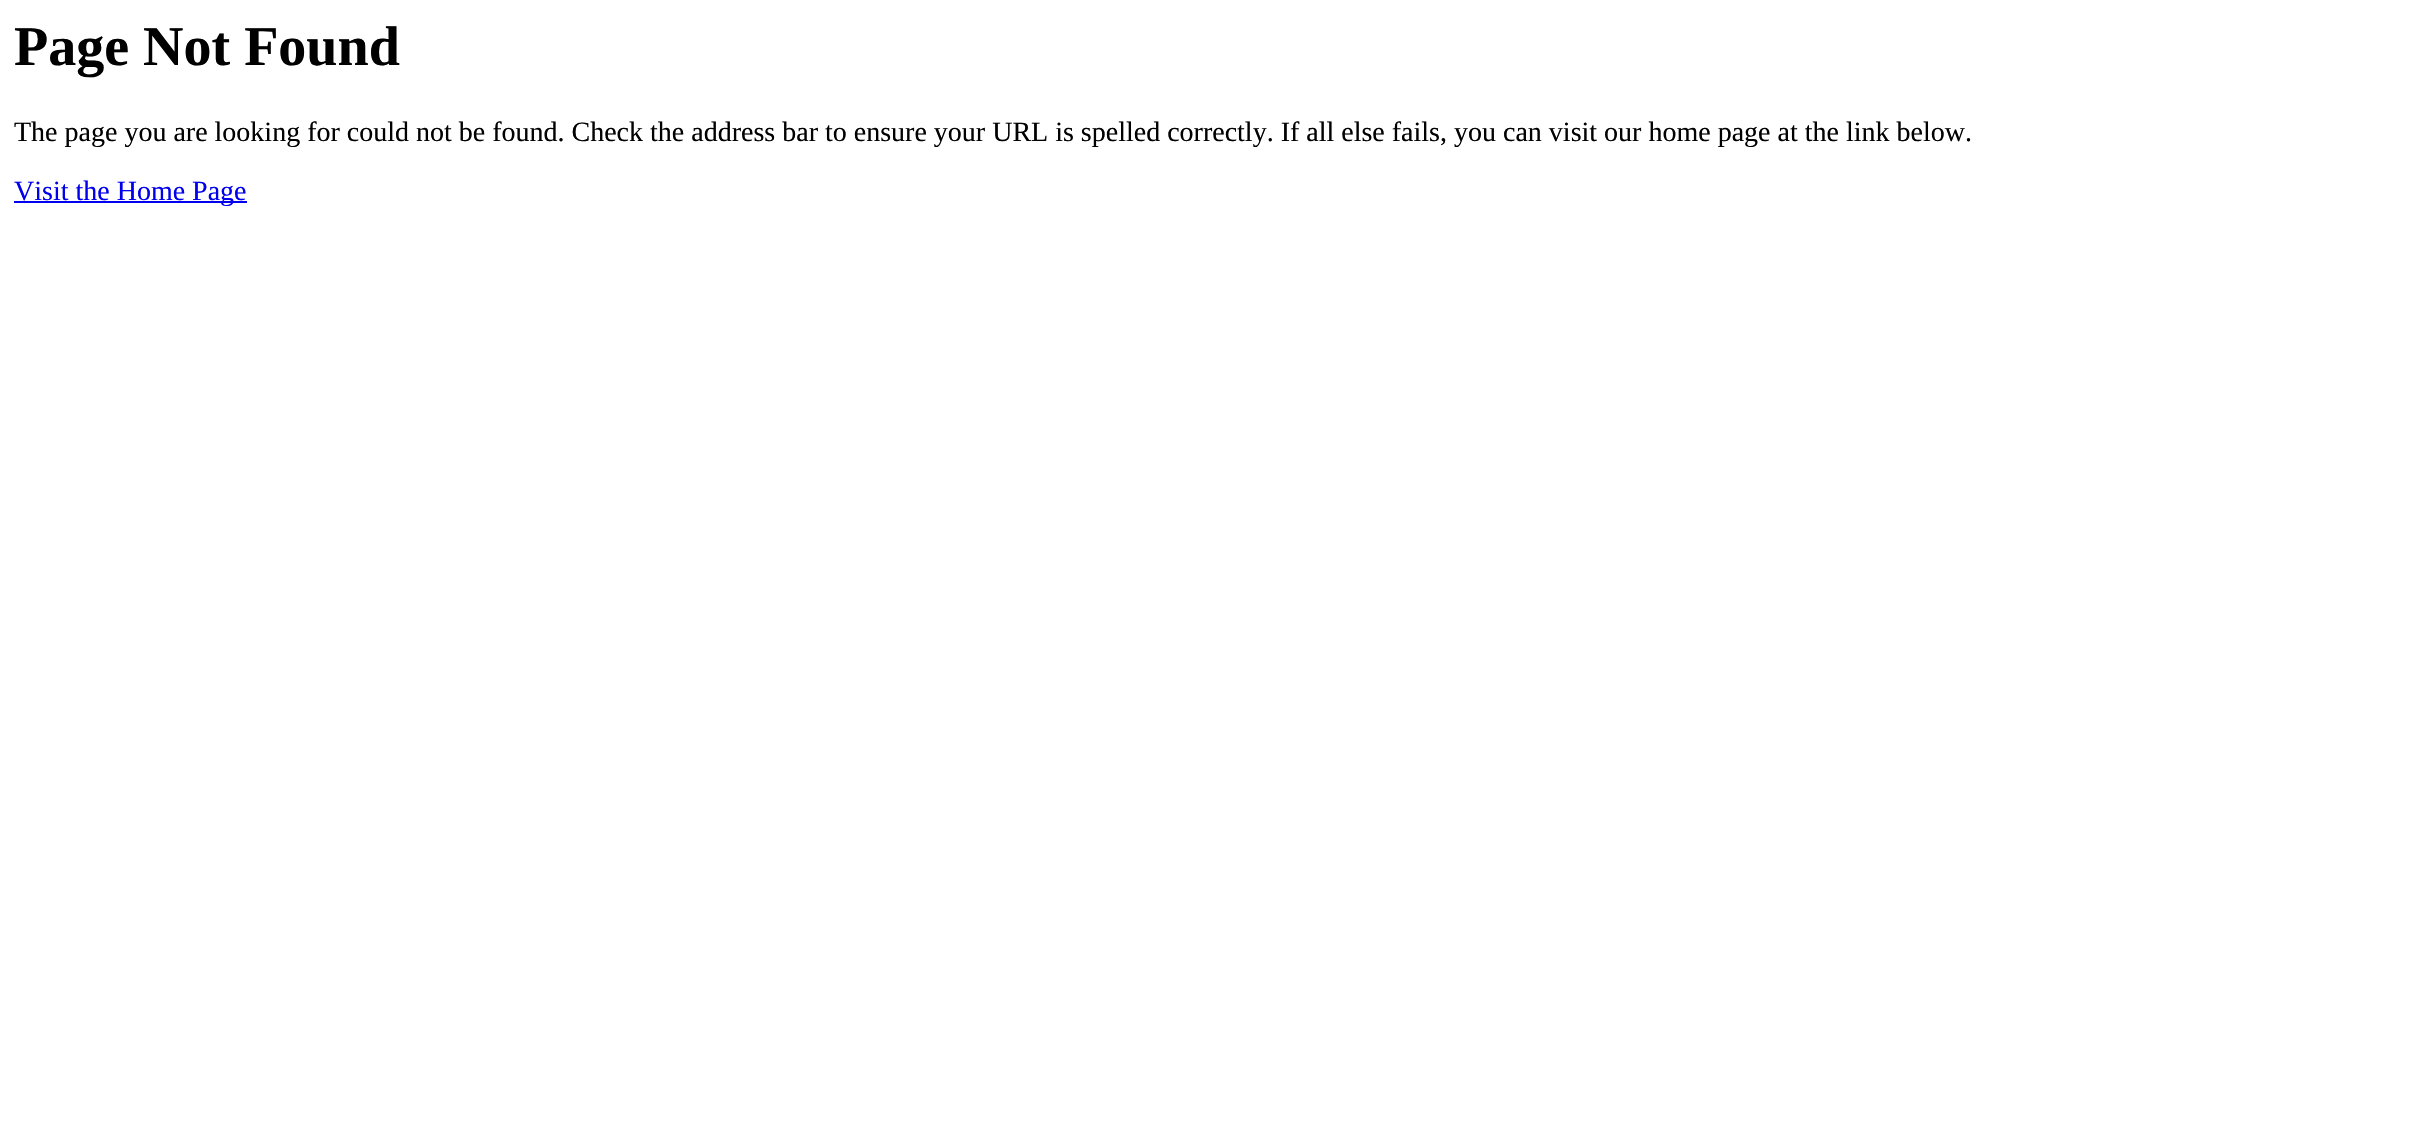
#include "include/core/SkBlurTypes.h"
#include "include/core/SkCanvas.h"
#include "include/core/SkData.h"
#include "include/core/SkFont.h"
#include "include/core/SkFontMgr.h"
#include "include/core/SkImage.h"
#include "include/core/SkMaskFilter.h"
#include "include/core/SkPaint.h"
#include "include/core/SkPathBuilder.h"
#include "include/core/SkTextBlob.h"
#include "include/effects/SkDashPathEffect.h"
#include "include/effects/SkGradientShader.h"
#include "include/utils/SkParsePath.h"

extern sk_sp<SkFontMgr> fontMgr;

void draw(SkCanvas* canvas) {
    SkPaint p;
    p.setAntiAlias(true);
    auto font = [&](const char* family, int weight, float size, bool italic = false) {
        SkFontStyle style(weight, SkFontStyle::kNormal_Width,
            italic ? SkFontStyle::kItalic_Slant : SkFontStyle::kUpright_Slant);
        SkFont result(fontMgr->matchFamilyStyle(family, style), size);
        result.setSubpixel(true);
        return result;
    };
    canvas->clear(0xFFFFFFFF);
    auto font1 = font("Liberation Serif", 700, 56);
    p.setColor(0xFF000000);
    canvas->drawString("Page Not Found", 14, 65, font1, p);
    auto font2 = font("Liberation Serif", 400, 28);
    canvas->drawString("The page you are looking for could not be found. Check the address bar to ensure your URL is spelled correctly. If all else fails, you can visit our home page at the link below.", 14, 141, font2, p);
    p.setColor(0xFF0000EE);
    canvas->drawRect(SkRect::MakeLTRB(14, 201, 247, 203), p);
    canvas->drawString("Visit the Home Page", 14, 200, font2, p);
}
